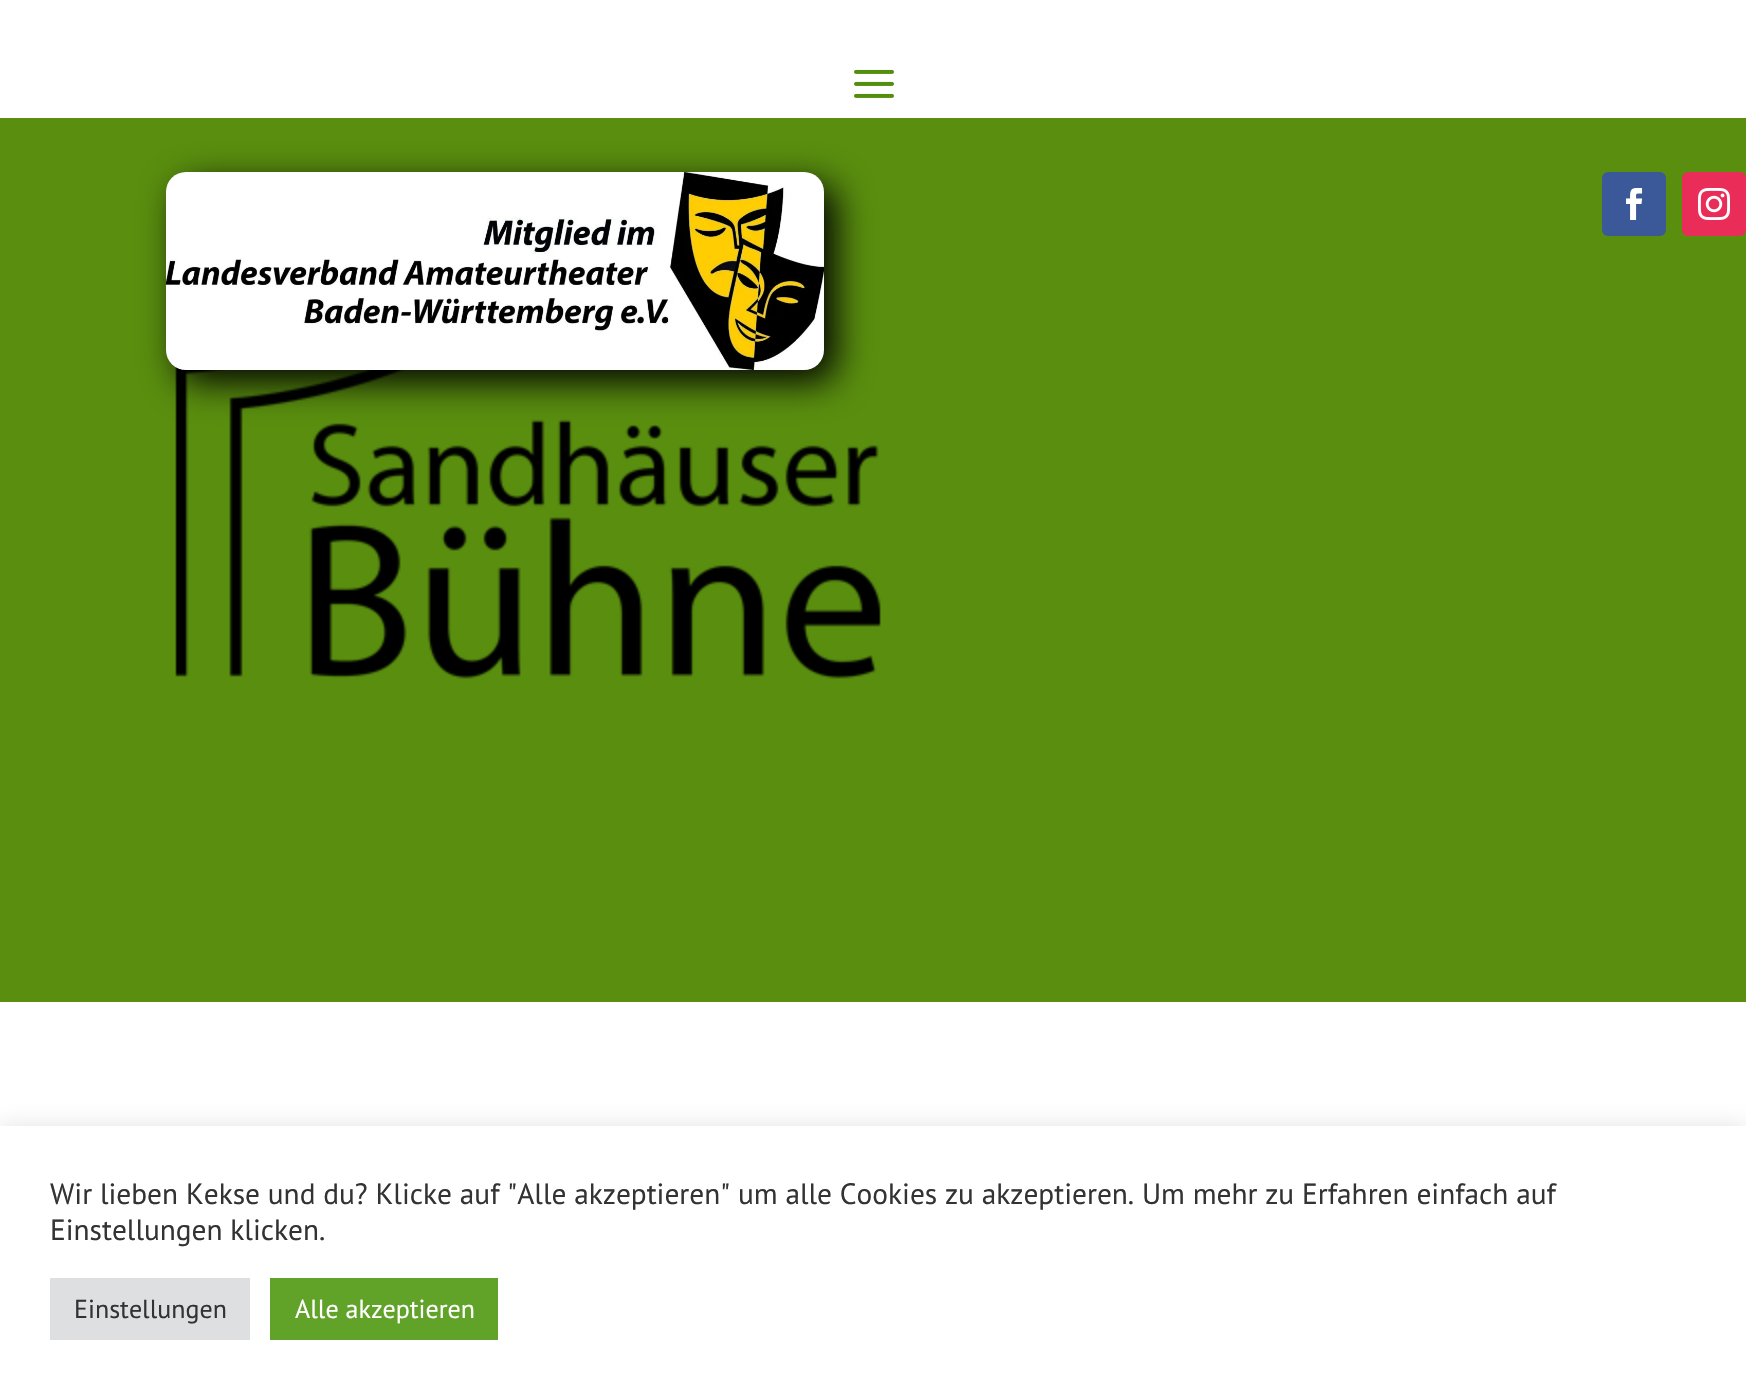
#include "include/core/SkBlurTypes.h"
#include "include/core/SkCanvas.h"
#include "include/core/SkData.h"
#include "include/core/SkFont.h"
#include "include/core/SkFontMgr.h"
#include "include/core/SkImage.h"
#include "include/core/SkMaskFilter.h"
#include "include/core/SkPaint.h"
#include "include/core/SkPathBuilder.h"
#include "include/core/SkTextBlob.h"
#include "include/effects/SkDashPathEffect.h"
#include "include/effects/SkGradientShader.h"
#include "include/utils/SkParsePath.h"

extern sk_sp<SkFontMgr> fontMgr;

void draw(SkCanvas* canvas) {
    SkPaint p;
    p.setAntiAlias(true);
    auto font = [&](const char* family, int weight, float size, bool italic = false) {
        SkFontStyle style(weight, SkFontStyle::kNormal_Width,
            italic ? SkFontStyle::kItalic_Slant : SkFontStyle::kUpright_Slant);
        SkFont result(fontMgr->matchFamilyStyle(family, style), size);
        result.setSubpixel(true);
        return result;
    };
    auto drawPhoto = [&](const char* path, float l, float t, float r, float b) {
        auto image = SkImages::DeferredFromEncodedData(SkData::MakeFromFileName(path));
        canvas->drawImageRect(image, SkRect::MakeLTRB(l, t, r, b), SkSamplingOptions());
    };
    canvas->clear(0xFF598E0E);
    p.setColor(0xFFFFFFFF);
    canvas->drawRect(SkRect::MakeLTRB(0, 0, 1746, 118), p);
    drawPhoto("media/1.png", 854, 69, 894, 98);
    drawPhoto("media/5.png", 175, 366, 881, 679);
    p.setColor(0xFF000000);
    p.setMaskFilter(SkMaskFilter::MakeBlur(kNormal_SkBlurStyle, 18));
    canvas->drawRoundRect(SkRect::MakeLTRB(178, 184, 836, 382), 20, 20, p);
    p.setMaskFilter(nullptr);
    drawPhoto("media/2.png", 166, 172, 824, 370);
    p.setColor(0xFF3B5998);
    canvas->drawRoundRect(SkRect::MakeLTRB(1602, 172, 1666, 236), 6, 6, p);
    drawPhoto("media/3.png", 1626, 188, 1643, 220);
    p.setColor(0xFFEA2C59);
    canvas->drawRoundRect(SkRect::MakeLTRB(1682, 172, 1746, 236), 6, 6, p);
    drawPhoto("media/4.png", 1698, 188, 1730, 220);
    p.setColor(0xFFFFFFFF);
    canvas->drawRect(SkRect::MakeLTRB(0, 1002, 1746, 1126), p);
    p.setColor(0x4DACABAB);
    p.setMaskFilter(SkMaskFilter::MakeBlur(kNormal_SkBlurStyle, 10));
    canvas->drawRect(SkRect::MakeLTRB(0, 1124, 1746, 1398), p);
    p.setMaskFilter(nullptr);
    p.setColor(0xFFFFFFFF);
    canvas->drawRect(SkRect::MakeLTRB(0, 1126, 1746, 1400), p);
    auto font1 = font("PT Sans", 400, 29.33f);
    p.setColor(0xFF333333);
    canvas->drawString("Wir lieben Kekse und du? Klicke auf \"Alle akzeptieren\" um alle Cookies zu akzeptieren. Um mehr zu Erfahren einfach auf", 50, 1204, font1, p);
    canvas->drawString("Einstellungen klicken.", 50, 1240, font1, p);
    p.setColor(0xFFDEDFE0);
    canvas->drawRect(SkRect::MakeLTRB(50, 1278, 250, 1340), p);
    auto font2 = font("PT Sans", 400, 26);
    p.setColor(0xFF333333);
    canvas->drawString("Einstellungen", 74, 1318, font2, p);
    p.setColor(0xFF61A229);
    canvas->drawRect(SkRect::MakeLTRB(270, 1278, 498, 1340), p);
    p.setColor(0xFFFFFFFF);
    canvas->drawString("Alle akzeptieren", 295, 1318, font2, p);
}
